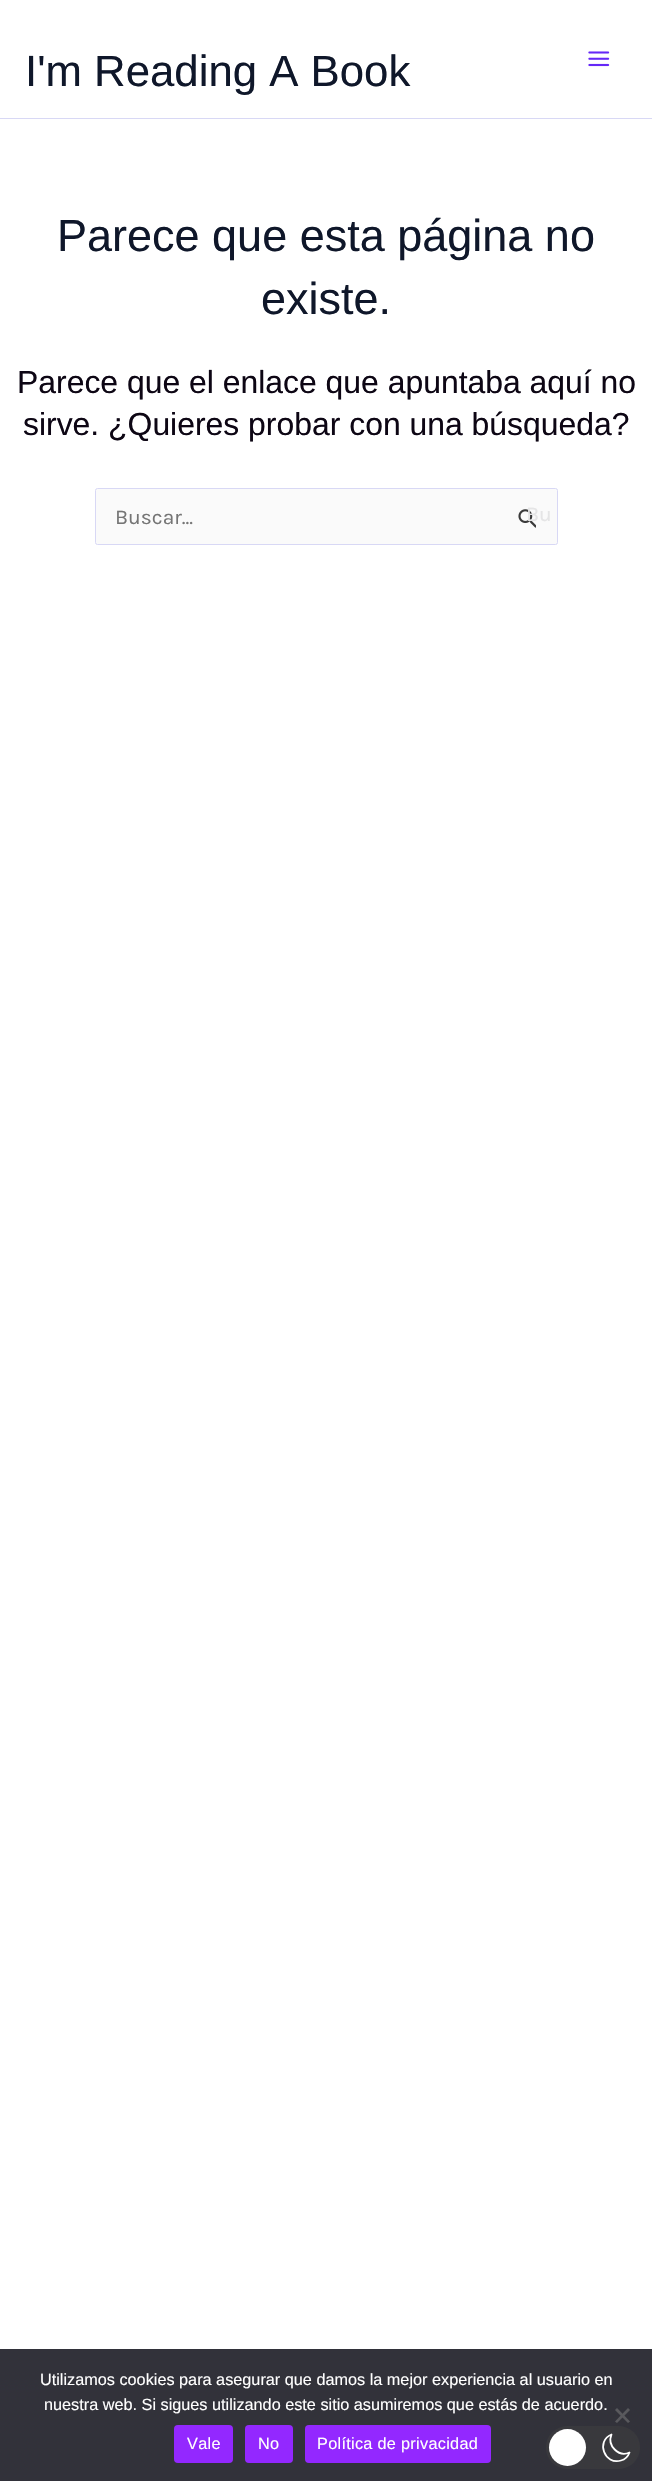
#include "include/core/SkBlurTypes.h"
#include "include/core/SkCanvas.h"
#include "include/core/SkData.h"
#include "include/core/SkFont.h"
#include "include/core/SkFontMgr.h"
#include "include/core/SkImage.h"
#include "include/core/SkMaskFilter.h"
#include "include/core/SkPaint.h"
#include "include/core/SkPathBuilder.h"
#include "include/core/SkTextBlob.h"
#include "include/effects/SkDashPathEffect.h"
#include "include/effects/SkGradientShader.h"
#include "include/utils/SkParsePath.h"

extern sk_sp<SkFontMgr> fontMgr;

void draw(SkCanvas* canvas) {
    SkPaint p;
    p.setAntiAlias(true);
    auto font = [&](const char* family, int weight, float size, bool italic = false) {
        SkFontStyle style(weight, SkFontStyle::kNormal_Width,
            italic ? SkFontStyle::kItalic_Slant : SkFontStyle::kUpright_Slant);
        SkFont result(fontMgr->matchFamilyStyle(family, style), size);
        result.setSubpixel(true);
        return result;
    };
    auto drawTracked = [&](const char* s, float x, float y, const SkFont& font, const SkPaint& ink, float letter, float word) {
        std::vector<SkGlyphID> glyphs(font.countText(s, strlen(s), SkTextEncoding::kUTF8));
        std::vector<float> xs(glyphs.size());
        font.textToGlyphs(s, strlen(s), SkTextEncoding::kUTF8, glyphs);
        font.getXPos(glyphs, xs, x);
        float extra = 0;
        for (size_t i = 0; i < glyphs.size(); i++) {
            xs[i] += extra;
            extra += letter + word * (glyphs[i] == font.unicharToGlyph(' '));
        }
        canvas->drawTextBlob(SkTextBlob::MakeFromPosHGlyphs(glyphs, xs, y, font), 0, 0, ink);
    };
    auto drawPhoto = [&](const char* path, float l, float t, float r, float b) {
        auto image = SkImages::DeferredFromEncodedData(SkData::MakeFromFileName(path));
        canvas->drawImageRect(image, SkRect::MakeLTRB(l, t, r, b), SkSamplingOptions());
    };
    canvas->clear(0xFFFFFFFF);
    p.setColor(0xFFD8D8F5);
    canvas->drawRect(SkRect::MakeLTRB(0, 118, 652, 119), p);
    auto font1 = font("Liberation Sans", 400, 43.75f);
    p.setColor(0xFF0F172A);
    canvas->drawString("I'm Reading A Book", 25, 86, font1, p);
    drawPhoto("media/1.png", 588, 51, 610, 67);
    auto font2 = font("Liberation Sans", 400, 45);
    canvas->drawString("Parece que esta página no", 57, 251, font2, p);
    canvas->drawString("existe.", 261, 314, font2, p);
    auto font3 = font("Liberation Sans", 400, 31.9f);
    p.setColor(0xFF0D0614);
    canvas->drawString("Parece que el enlace que apuntaba aquí no", 17, 393, font3, p);
    canvas->drawString("sirve. ¿Quieres probar con una búsqueda?", 23, 435, font3, p);
    p.setColor(0xFFFAFAFA);
    canvas->drawRoundRect(SkRect::MakeLTRB(95.5f, 488.5f, 557.5f, 544.5f), 2, 2, p);
    p.setStyle(SkPaint::kStroke_Style);
    p.setStrokeWidth(1);
    p.setColor(0xFFD8D8F5);
    canvas->drawRoundRect(SkRect::MakeLTRB(95.5f, 488.5f, 557.5f, 544.5f), 2, 2, p);
    auto font4 = font("Karla", 400, 21);
    p.setStyle(SkPaint::kFill_Style);
    p.setColor(0xFF757575);
    canvas->drawString("Buscar...", 115, 524, font4, p);
    drawPhoto("media/2.png", 518, 509, 536, 528);
    p.setColor(0xFFE5E5E6);
    canvas->drawString("Bu", 526, 521, font4, p);
    p.setColor(0xFF32323A);
    canvas->drawRect(SkRect::MakeLTRB(0, 2349, 652, 2481), p);
    auto font5 = font("Liberation Sans", 400, 16.25f);
    p.setColor(0xFFFFFFFF);
    canvas->drawString("Utilizamos cookies para asegurar que damos la mejor experiencia al usuario en", 40, 2385, font5, p);
    canvas->drawString("nuestra web. Si sigues utilizando este sitio asumiremos que estás de acuerdo.", 44, 2410, font5, p);
    p.setColor(0xFF59595D);
    canvas->drawPath(SkPathBuilder().moveTo(628, 2408).lineTo(630, 2410).lineTo(617, 2423).lineTo(615, 2421.5f).close().detach(), p);
    canvas->drawPath(SkPathBuilder().moveTo(615, 2410).lineTo(617, 2408).lineTo(630, 2421.5f).lineTo(628, 2423).close().detach(), p);
    p.setColor(0xFF9328FF);
    canvas->drawRoundRect(SkRect::MakeLTRB(174, 2425, 233, 2463), 4, 4, p);
    p.setColor(0xFFFFFFFF);
    drawTracked("Vale", 187, 2449, font5, p, 0.3f, 0);
    p.setColor(0xFF9328FF);
    canvas->drawRoundRect(SkRect::MakeLTRB(245, 2425, 293, 2463), 4, 4, p);
    p.setColor(0xFFFFFFFF);
    drawTracked("No", 258, 2449, font5, p, 0.3f, 0);
    p.setColor(0xFF9328FF);
    canvas->drawRoundRect(SkRect::MakeLTRB(305, 2425, 491, 2463), 4, 4, p);
    p.setColor(0xFFFFFFFF);
    drawTracked("Política de privacidad", 317, 2449, font5, p, 0.3f, 0);
    p.setColor(0xFF39393D);
    canvas->drawRoundRect(SkRect::MakeLTRB(546, 2426, 640, 2469), 21.5f, 21.5f, p);
    drawPhoto("media/3.png", 583, 2455, 584, 2456);
    p.setColor(0xFFFFFFFF);
    canvas->drawCircle(567.5f, 2447.5f, 18.5f, p);
    p.setStyle(SkPaint::kStroke_Style);
    p.setStrokeWidth(1.8f);
    p.setStrokeCap(SkPaint::kRound_Cap);
    p.setStrokeJoin(SkPaint::kRound_Join);
    canvas->drawPath(SkPathBuilder().moveTo(629.5f, 2452.5f).cubicTo(618.5f, 2457.5f, 607, 2445.5f, 611.5f, 2434.5f).cubicTo(595.5f, 2441, 604.5f, 2465.5f, 621, 2460.5f).cubicTo(625, 2459.5f, 628, 2456.5f, 629.5f, 2452.5f).close().detach(), p);
}
